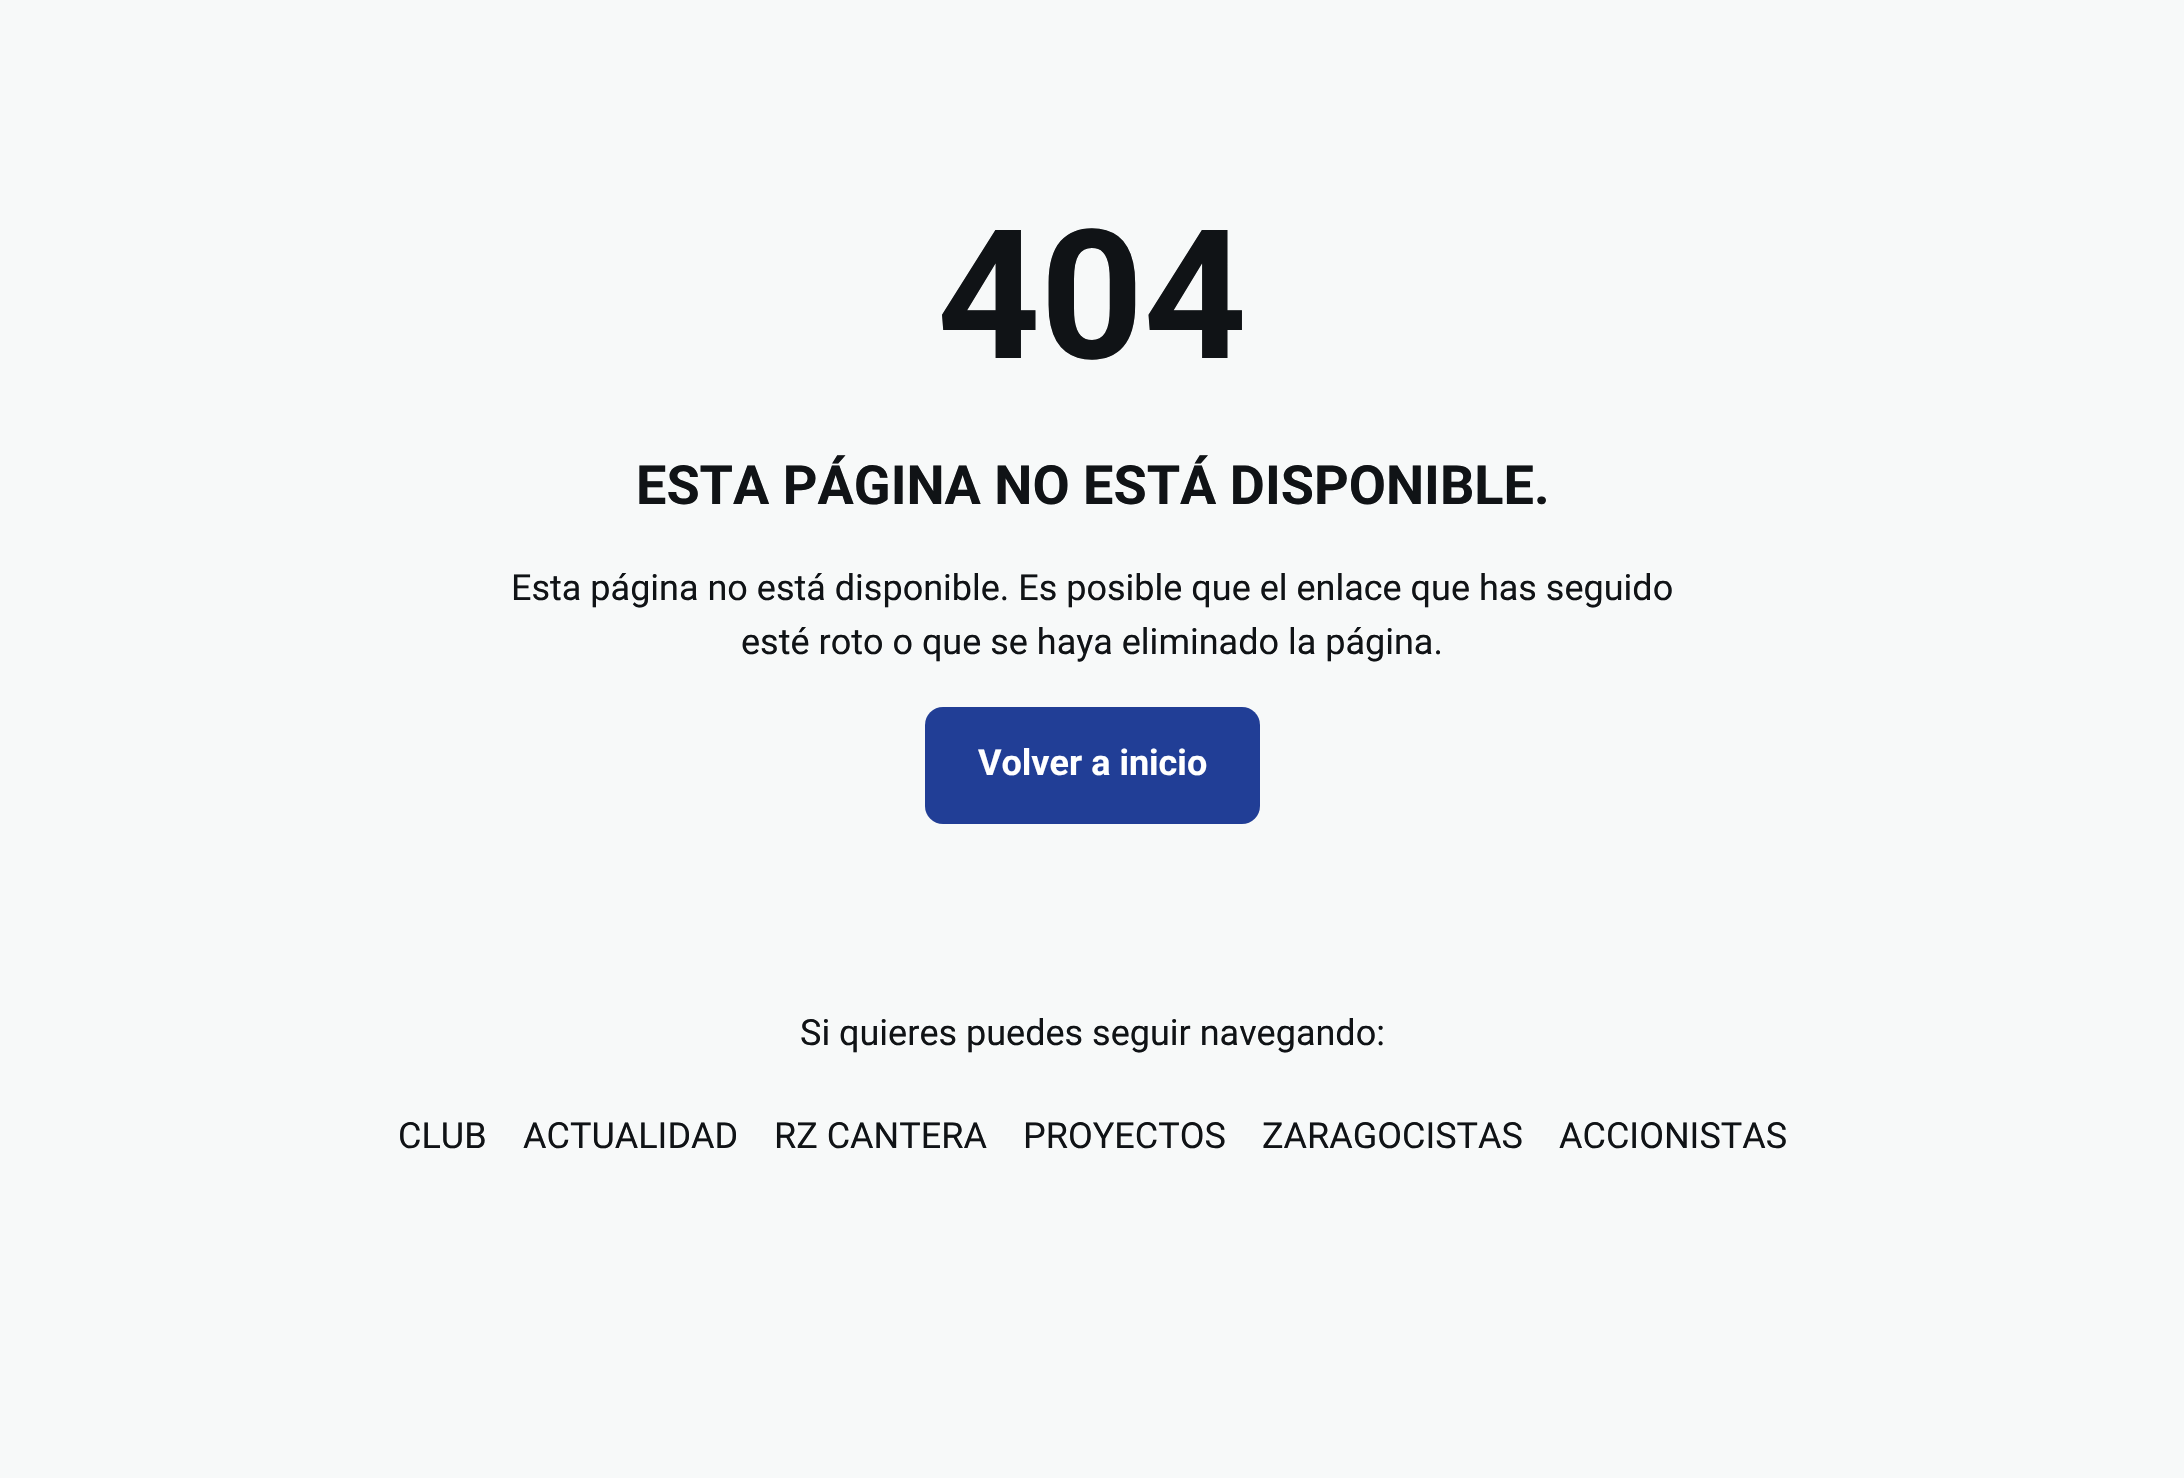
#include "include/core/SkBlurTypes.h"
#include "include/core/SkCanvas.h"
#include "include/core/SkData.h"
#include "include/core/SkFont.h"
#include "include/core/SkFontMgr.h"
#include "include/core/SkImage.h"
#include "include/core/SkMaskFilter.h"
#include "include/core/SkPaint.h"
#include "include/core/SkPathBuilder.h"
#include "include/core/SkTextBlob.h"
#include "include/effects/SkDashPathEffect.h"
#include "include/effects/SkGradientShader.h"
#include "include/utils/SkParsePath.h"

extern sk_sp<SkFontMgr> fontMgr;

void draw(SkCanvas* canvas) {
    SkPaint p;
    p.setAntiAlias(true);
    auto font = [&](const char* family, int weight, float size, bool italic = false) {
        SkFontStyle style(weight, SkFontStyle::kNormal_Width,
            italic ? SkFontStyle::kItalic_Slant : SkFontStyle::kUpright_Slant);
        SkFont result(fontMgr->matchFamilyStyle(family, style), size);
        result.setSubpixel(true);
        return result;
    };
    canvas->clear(0xFFF7F9F9);
    auto font1 = font("Roboto", 700, 180);
    p.setColor(0xFF101316);
    canvas->drawString("404", 937, 358, font1, p);
    auto font2 = font("Roboto", 700, 54);
    canvas->drawString("ESTA PÁGINA NO ESTÁ DISPONIBLE.", 636, 504, font2, p);
    auto font3 = font("Roboto", 400, 36);
    canvas->drawString("Esta página no está disponible. Es posible que el enlace que has seguido", 511, 600, font3, p);
    canvas->drawString("esté roto o que se haya eliminado la página.", 741, 654, font3, p);
    p.setColor(0xFF213E96);
    canvas->drawRoundRect(SkRect::MakeLTRB(925, 707, 1260, 824), 18, 18, p);
    auto font4 = font("Roboto", 700, 36);
    p.setColor(0xFFFFFFFF);
    canvas->drawString("Volver a inicio", 978, 775, font4, p);
    p.setColor(0xFF101316);
    {
        const struct { const char* s; float x, y; } items[] = {
            {"Si quieres puedes seguir navegando:", 800, 1045},
            {"CLUB", 398, 1148},
            {"ACTUALIDAD", 523, 1148},
            {"RZ CANTERA", 774, 1148},
            {"PROYECTOS", 1023, 1148},
            {"ZARAGOCISTAS", 1262, 1148},
            {"ACCIONISTAS", 1559, 1148},
        };
        for (auto [s, x, y] : items) {
            canvas->drawString(s, x, y, font3, p);
        }
    }
}
